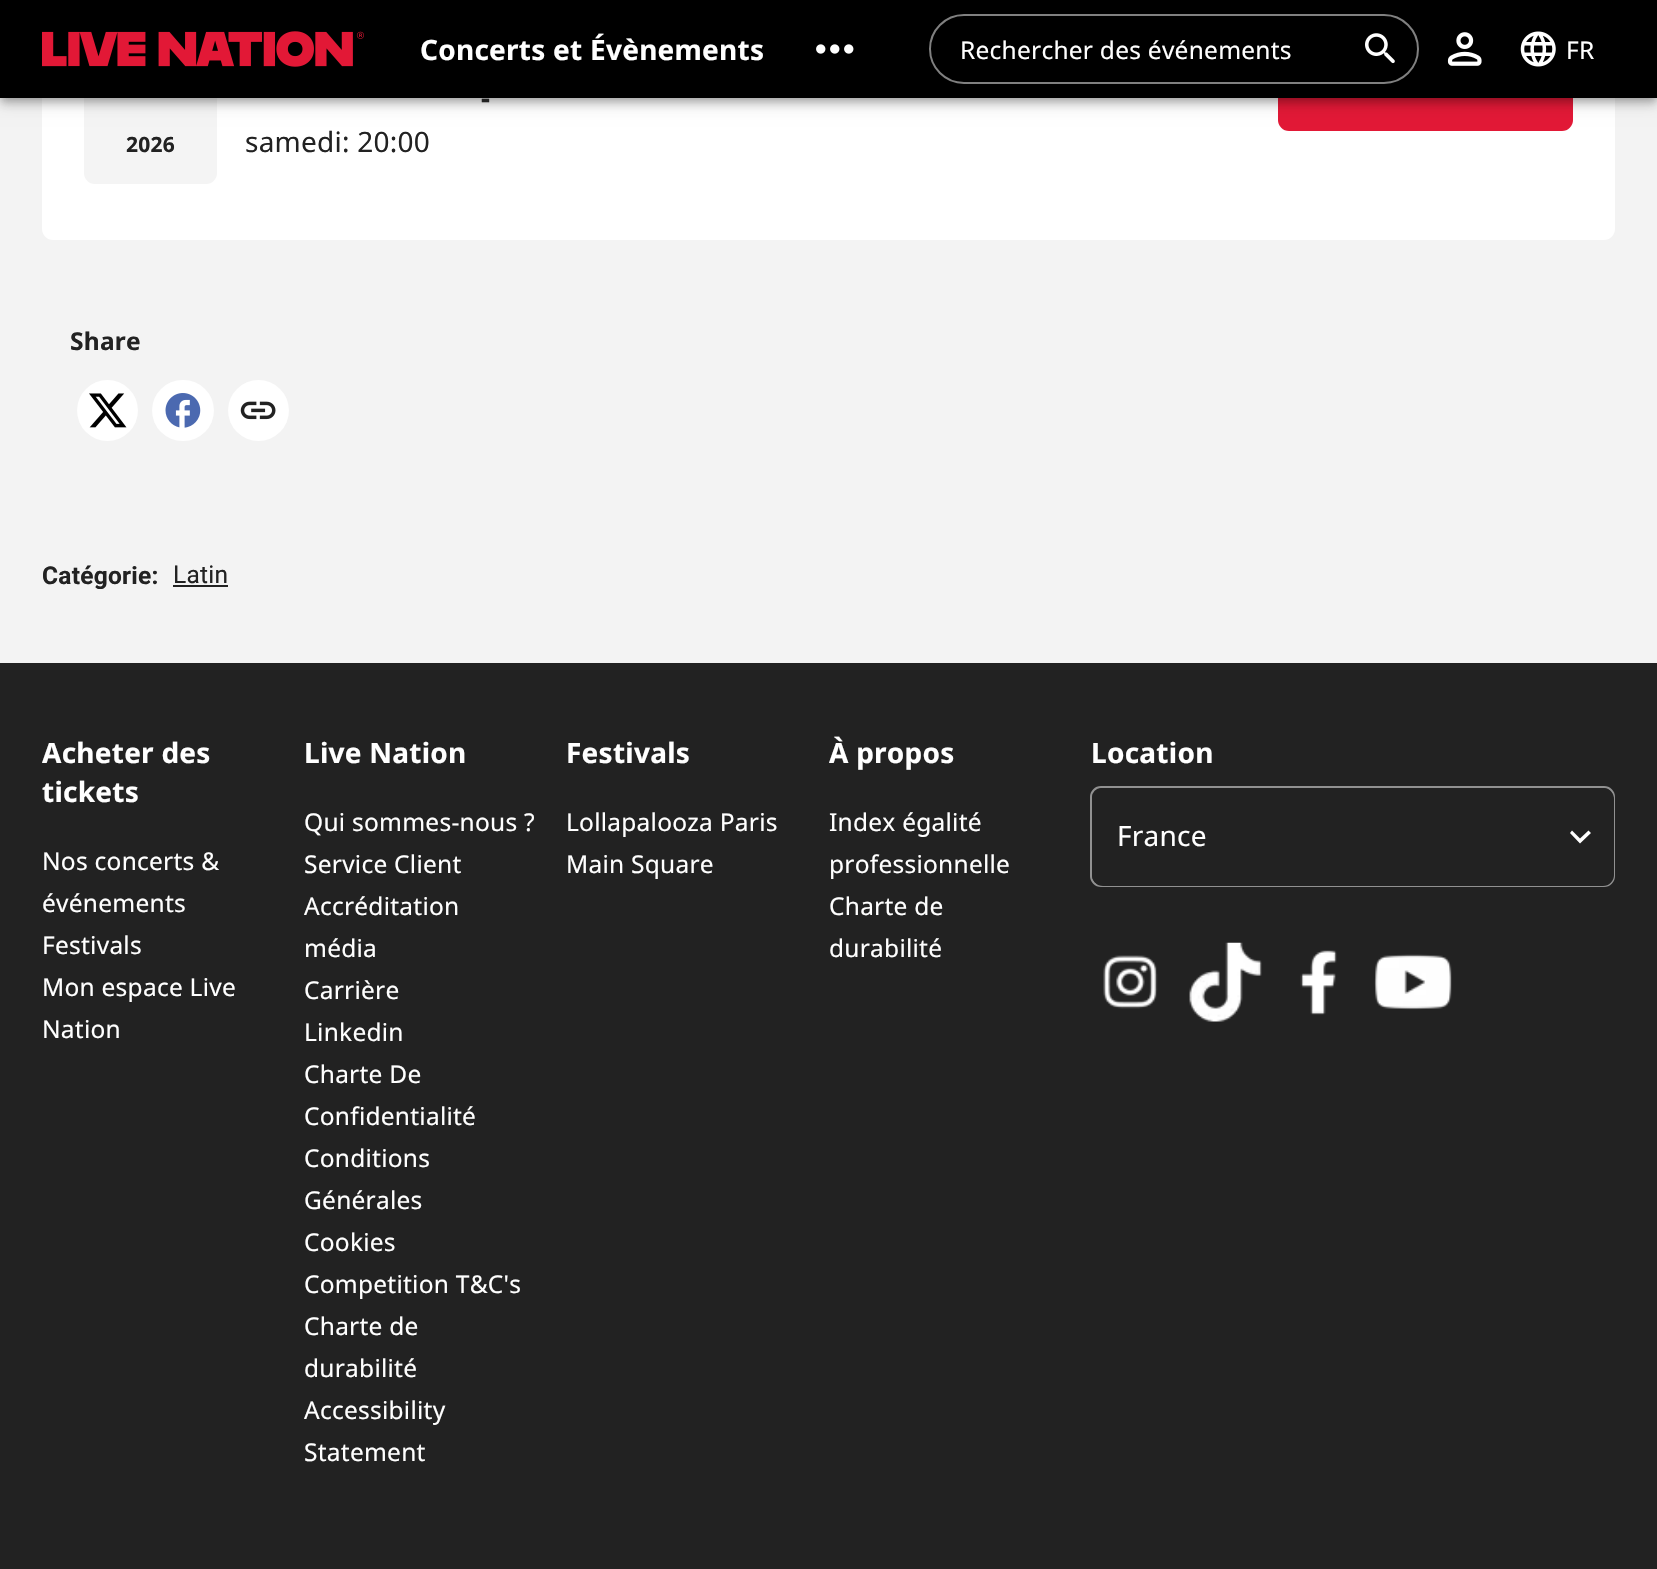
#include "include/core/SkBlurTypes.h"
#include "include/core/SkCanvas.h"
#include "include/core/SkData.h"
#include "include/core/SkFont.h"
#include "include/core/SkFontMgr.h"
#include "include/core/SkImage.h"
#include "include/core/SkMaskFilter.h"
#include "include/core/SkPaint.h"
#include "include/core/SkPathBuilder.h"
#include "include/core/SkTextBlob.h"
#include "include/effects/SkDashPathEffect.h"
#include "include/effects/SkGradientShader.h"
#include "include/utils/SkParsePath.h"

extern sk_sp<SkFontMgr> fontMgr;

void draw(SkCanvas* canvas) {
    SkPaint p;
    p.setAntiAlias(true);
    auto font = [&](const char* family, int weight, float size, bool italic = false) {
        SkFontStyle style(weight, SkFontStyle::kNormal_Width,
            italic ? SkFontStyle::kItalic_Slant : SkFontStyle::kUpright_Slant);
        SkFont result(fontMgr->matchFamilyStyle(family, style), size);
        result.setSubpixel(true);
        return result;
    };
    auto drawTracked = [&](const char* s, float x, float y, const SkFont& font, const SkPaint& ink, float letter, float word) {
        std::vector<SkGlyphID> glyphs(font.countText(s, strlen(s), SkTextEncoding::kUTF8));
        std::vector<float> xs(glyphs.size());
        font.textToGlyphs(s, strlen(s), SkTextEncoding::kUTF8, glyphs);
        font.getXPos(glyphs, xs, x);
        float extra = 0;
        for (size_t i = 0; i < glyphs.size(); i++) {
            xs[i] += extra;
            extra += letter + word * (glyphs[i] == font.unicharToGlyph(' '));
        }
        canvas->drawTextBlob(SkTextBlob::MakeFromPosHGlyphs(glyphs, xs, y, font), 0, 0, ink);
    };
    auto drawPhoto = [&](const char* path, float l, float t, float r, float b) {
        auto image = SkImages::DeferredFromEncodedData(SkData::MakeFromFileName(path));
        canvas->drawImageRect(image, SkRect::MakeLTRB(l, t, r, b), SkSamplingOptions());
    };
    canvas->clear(0xFFF3F3F3);
    p.setColor(0xFFFFFFFF);
    canvas->drawRoundRect(SkRect::MakeLTRB(42, -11, 1615, 240), 11, 11, p);
    p.setColor(0xFFF4F4F4);
    canvas->drawRoundRect(SkRect::MakeLTRB(84, 9, 217, 184), 11, 11, p);
    p.setColor(0xFFE21836);
    canvas->drawRoundRect(SkRect::MakeLTRB(1278, 61, 1573, 131), 11, 11, p);
    p.setColor(0x1F000000);
    p.setMaskFilter(SkMaskFilter::MakeBlur(kNormal_SkBlurStyle, 9));
    canvas->drawRect(SkRect::MakeLTRB(0, 2, 1657, 100), p);
    p.setMaskFilter(nullptr);
    p.setColor(0x24000000);
    p.setMaskFilter(SkMaskFilter::MakeBlur(kNormal_SkBlurStyle, 4.5f));
    canvas->drawRect(SkRect::MakeLTRB(0, 7, 1657, 105), p);
    p.setMaskFilter(nullptr);
    p.setColor(0x33000000);
    p.setMaskFilter(SkMaskFilter::MakeBlur(kNormal_SkBlurStyle, 3.5f));
    canvas->drawRect(SkRect::MakeLTRB(2, 5, 1656, 100), p);
    p.setMaskFilter(nullptr);
    p.setColor(0xFF000000);
    canvas->drawRect(SkRect::MakeLTRB(0, 0, 1657, 98), p);
    drawPhoto("media/1.png", 42, 31, 364, 67);
    auto font1 = font("Noto Sans", 700, 28);
    p.setColor(0xFFFFFFFF);
    drawTracked("Concerts et Évènements", 420, 60, font1, p, 0.25f, 0);
    drawPhoto("media/2.png", 816, 44, 854, 54);
    p.setStyle(SkPaint::kStroke_Style);
    p.setStrokeWidth(2);
    p.setColor(0xFF808080);
    canvas->drawRoundRect(SkRect::MakeLTRB(930, 15, 1418, 83), 34, 34, p);
    auto font2 = font("Noto Sans", 400, 24.5f);
    p.setStyle(SkPaint::kFill_Style);
    p.setColor(0xFFFFFFFF);
    drawTracked("Rechercher des événements", 960, 59, font2, p, 0.25f, 0);
    drawPhoto("media/3.png", 1365, 33, 1395, 64);
    drawPhoto("media/4.png", 1447, 32, 1482, 66);
    drawPhoto("media/5.png", 1520, 31, 1556, 67);
    drawTracked("FR", 1566, 59, font2, p, 0.25f, 0);
    auto font3 = font("Noto Sans", 700, 21);
    p.setColor(0xFF222222);
    drawTracked("2026", 126, 152, font3, p, 0.25f, 0);
    drawTracked("-", 481, 108, font1, p, 0.25f, 0);
    auto font4 = font("Noto Sans", 400, 28);
    drawTracked("samedi: 20:00", 245, 152, font4, p, 0.25f, 0);
    auto font5 = font("Noto Sans", 700, 24.5f);
    drawTracked("Share", 70, 350, font5, p, 0.25f, 0);
    p.setColor(0xFFFFFFFF);
    canvas->drawCircle(107.5f, 410.5f, 30.5f, p);
    drawPhoto("media/6.png", 89, 393, 127, 428);
    canvas->drawRoundRect(SkRect::MakeLTRB(152, 380, 214, 441), 30.5f, 30.5f, p);
    drawPhoto("media/7.png", 165, 393, 201, 428);
    canvas->drawCircle(258.5f, 410.5f, 30.5f, p);
    drawPhoto("media/8.png", 240, 401, 276, 420);
    auto font6 = font("Roboto", 700, 24.5f);
    p.setColor(0xFF222222);
    drawTracked("Catégorie:", 42, 584, font6, p, 0.25f, 0);
    auto font7 = font("Roboto", 400, 24.5f);
    drawTracked("Latin", 173, 583, font7, p, 0.25f, 0);
    canvas->drawRect(SkRect::MakeLTRB(173, 585, 228, 587), p);
    canvas->drawRect(SkRect::MakeLTRB(0, 663, 1657, 1569), p);
    p.setColor(0xFFFFFFFF);
    drawTracked("Acheter des", 42, 763, font1, p, 0.25f, 0);
    drawTracked("tickets", 42, 802, font1, p, 0.25f, 0);
    {
        const struct { const char* s; float x, y; } items[] = {
            {"Nos concerts &", 42, 870},
            {"événements", 42, 912},
            {"Festivals", 42, 954},
            {"Mon espace Live", 42, 996},
            {"Nation", 42, 1038},
        };
        for (auto [s, x, y] : items) {
            drawTracked(s, x, y, font2, p, 0.25f, 0);
        }
    }
    drawTracked("Live Nation", 304, 763, font1, p, 0.25f, 0);
    {
        const struct { const char* s; float x, y; } items[] = {
            {"Qui sommes-nous ?", 304, 831},
            {"Service Client", 304, 873},
            {"Accréditation", 304, 915},
            {"média", 304, 957},
            {"Carrière", 304, 999},
            {"Linkedin", 304, 1041},
            {"Charte De", 304, 1083},
            {"Confidentialité", 304, 1125},
            {"Conditions", 304, 1167},
            {"Générales", 304, 1209},
            {"Cookies", 304, 1251},
            {"Competition T&C's", 304, 1293},
            {"Charte de", 304, 1335},
            {"durabilité", 304, 1377},
            {"Accessibility", 304, 1419},
            {"Statement", 304, 1461},
        };
        for (auto [s, x, y] : items) {
            drawTracked(s, x, y, font2, p, 0.25f, 0);
        }
    }
    drawTracked("Festivals", 566, 763, font1, p, 0.25f, 0);
    drawTracked("Lollapalooza Paris", 566, 831, font2, p, 0.25f, 0);
    drawTracked("Main Square", 566, 873, font2, p, 0.25f, 0);
    drawTracked("À propos", 829, 763, font1, p, 0.25f, 0);
    {
        const struct { const char* s; float x, y; } items[] = {
            {"Index égalité", 829, 831},
            {"professionnelle", 829, 873},
            {"Charte de", 829, 915},
            {"durabilité", 829, 957},
        };
        for (auto [s, x, y] : items) {
            drawTracked(s, x, y, font2, p, 0.25f, 0);
        }
    }
    drawTracked("Location", 1091, 763, font1, p, 0.25f, 0);
    p.setStyle(SkPaint::kStroke_Style);
    p.setColor(0xFF919191);
    canvas->drawRoundRect(SkRect::MakeLTRB(1091, 787, 1614, 886), 10, 10, p);
    p.setStyle(SkPaint::kFill_Style);
    p.setColor(0xFF222222);
    canvas->drawRoundRect(SkRect::MakeLTRB(1092, 788, 1614, 886), 11, 11, p);
    p.setColor(0xFFFFFFFF);
    drawTracked("France", 1117, 846, font4, p, 0.25f, 0);
    canvas->drawPath(SkPathBuilder().moveTo(1572, 830.5f).lineTo(1580, 838.5f).lineTo(1588.5f, 830.5f).lineTo(1591, 833).lineTo(1580, 843.5f).lineTo(1570, 833).close().detach(), p);
    drawPhoto("media/9.png", 1103, 955, 1158, 1009);
    drawPhoto("media/10.png", 1189, 942, 1262, 1022);
    drawPhoto("media/11.png", 1300, 950, 1337, 1015);
    drawPhoto("media/12.png", 1374, 954, 1452, 1010);
}
